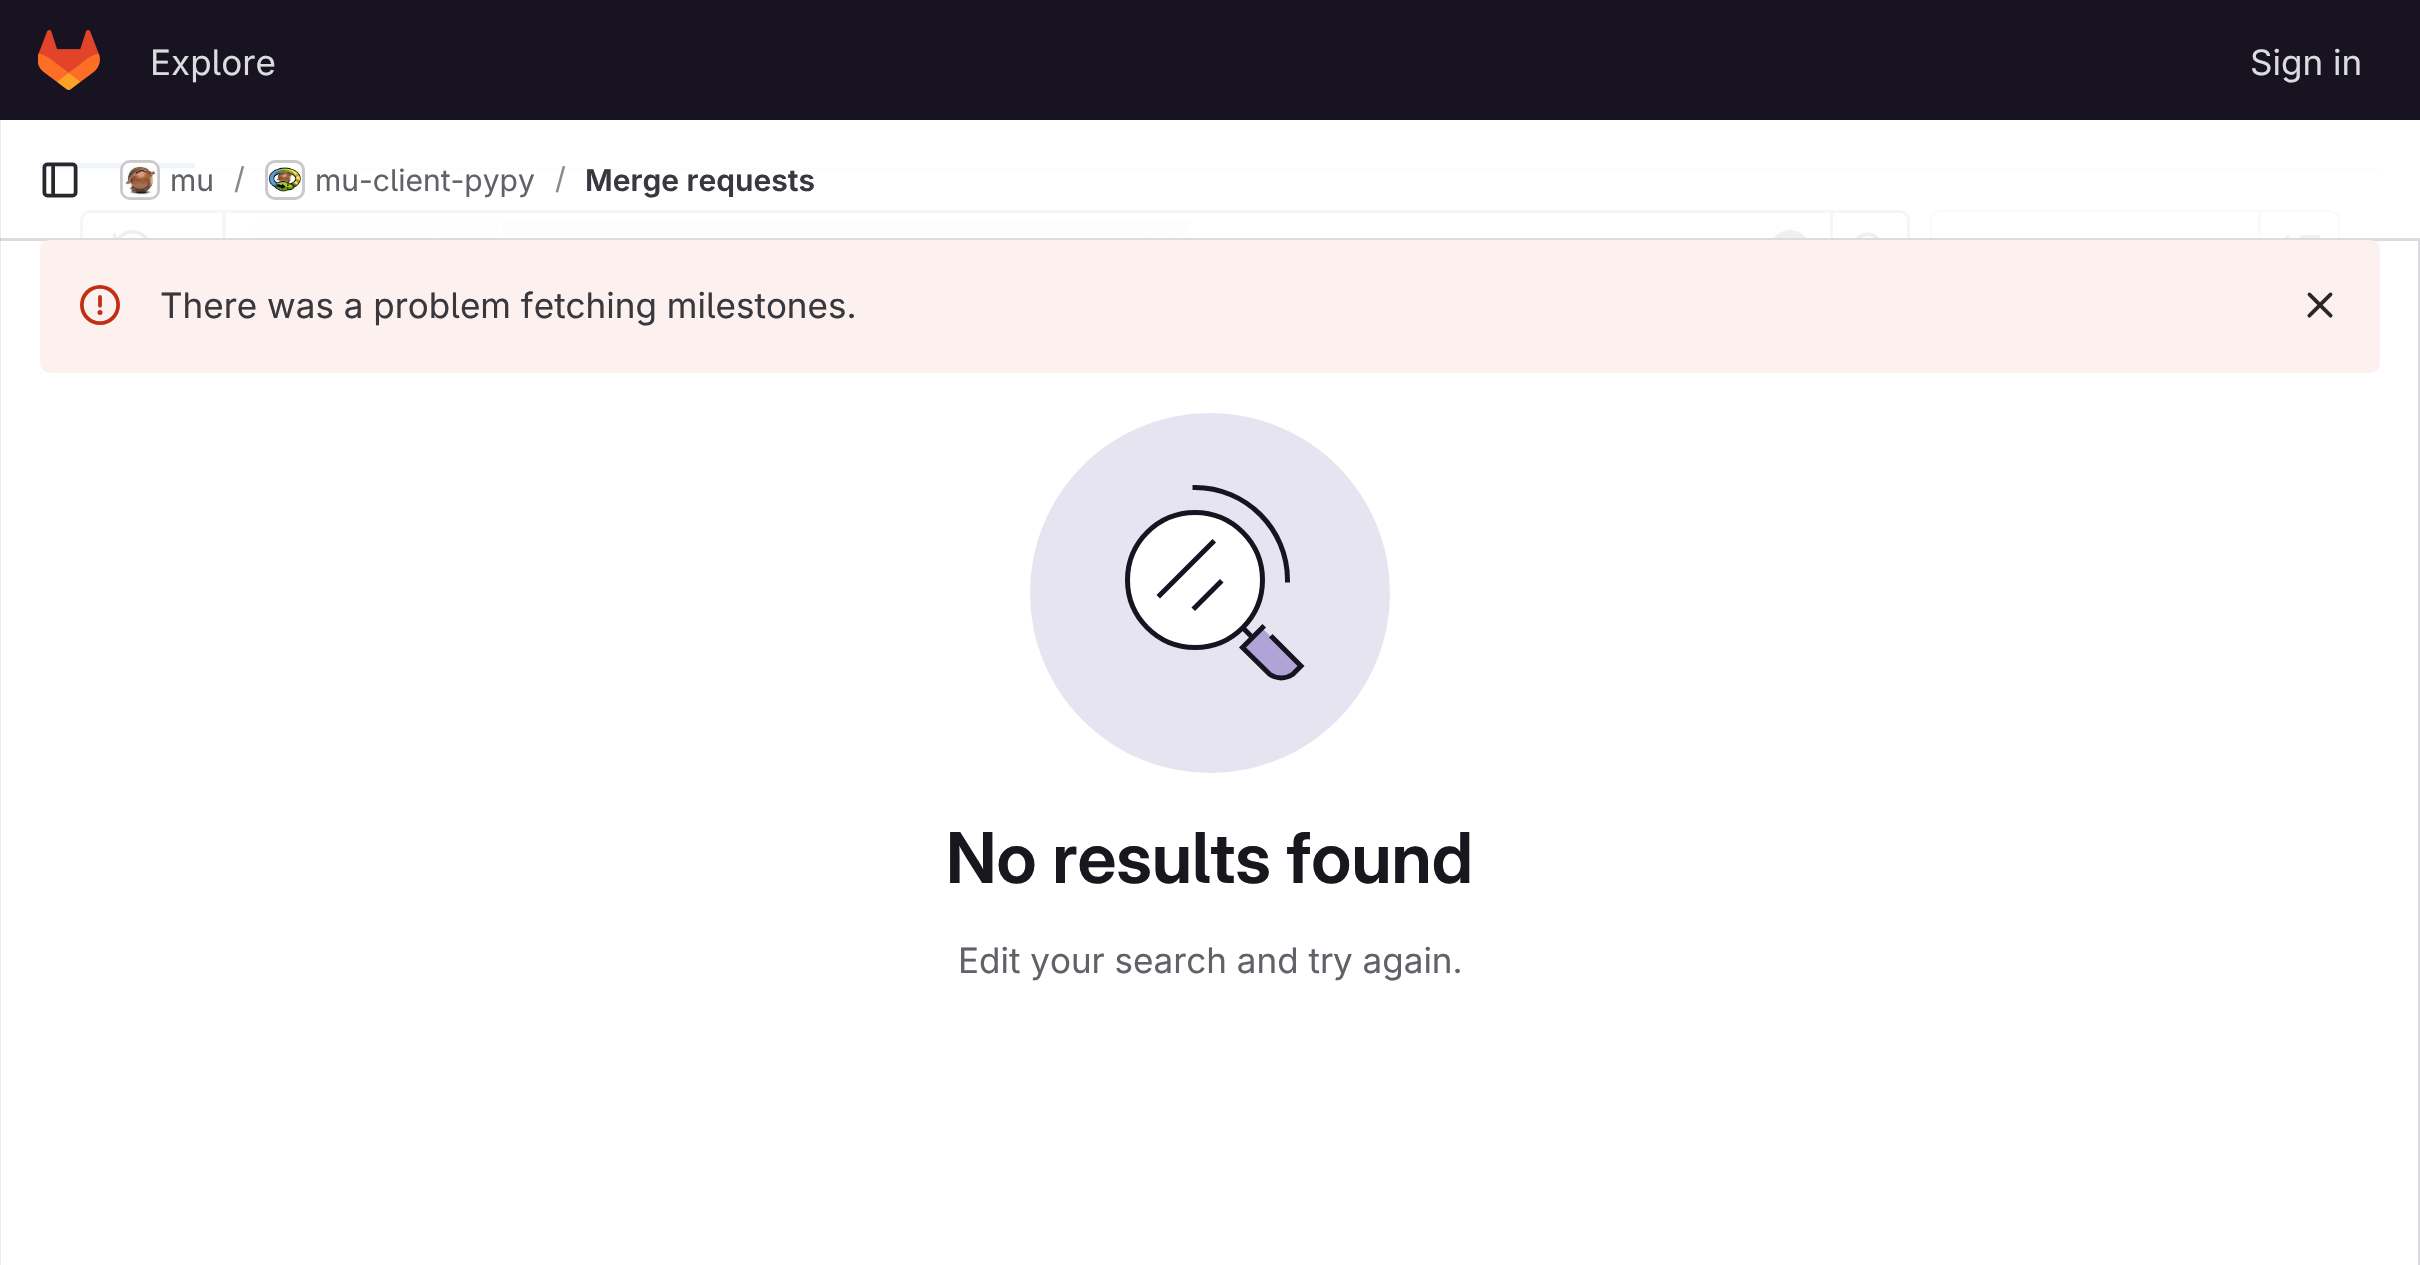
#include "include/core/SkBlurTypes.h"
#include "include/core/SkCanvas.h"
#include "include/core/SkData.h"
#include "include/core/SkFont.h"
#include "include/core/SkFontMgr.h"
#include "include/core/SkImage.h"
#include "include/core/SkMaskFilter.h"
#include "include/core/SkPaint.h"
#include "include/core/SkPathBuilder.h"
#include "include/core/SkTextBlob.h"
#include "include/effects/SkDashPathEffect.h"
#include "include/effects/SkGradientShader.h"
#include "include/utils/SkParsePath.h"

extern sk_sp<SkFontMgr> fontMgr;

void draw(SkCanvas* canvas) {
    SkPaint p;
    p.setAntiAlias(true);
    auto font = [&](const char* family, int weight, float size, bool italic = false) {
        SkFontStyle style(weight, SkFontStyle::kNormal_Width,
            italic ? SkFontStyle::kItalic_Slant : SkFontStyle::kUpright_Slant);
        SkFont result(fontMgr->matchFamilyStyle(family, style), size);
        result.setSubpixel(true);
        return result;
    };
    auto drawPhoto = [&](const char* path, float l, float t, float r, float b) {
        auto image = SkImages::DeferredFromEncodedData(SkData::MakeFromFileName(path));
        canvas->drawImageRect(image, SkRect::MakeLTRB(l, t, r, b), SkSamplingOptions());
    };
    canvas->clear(0xFFFFFFFF);
    p.setColor(0xFF171321);
    canvas->drawRect(SkRect::MakeLTRB(0, 0, 2420, 120), p);
    drawPhoto("media/1.png", 38, 30, 100, 90);
    auto font1 = font("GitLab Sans", 400, 35);
    p.setColor(0xFFDCDCDE);
    canvas->drawString("Explore", 150, 75, font1, p);
    canvas->drawString("Sign in", 2250, 75, font1, p);
    p.setColor(0xFFFBFAFD);
    canvas->drawRect(SkRect::MakeLTRB(40, 170, 2380, 250), p);
    p.setColor(0xFFFFFFFF);
    canvas->drawRect(SkRect::MakeLTRB(226, 213, 1830, 238), p);
    p.setStyle(SkPaint::kStroke_Style);
    p.setStrokeWidth(3);
    p.setColor(0xFF89888D);
    canvas->drawRect(SkRect::MakeLTRB(224.5f, 211.5f, 1831.5f, 288.5f), p);
    p.setStyle(SkPaint::kFill_Style);
    p.setColor(0xFFFFFFFF);
    canvas->drawPath(SkPathBuilder().moveTo(90, 211.5f).lineTo(223.5f, 211.5f).lineTo(223.5f, 288.5f).lineTo(90, 288.5f).cubicTo(85.5f, 288.5f, 81.5f, 284.5f, 81.5f, 280).lineTo(81.5f, 220).cubicTo(81.5f, 215.5f, 85.5f, 211.5f, 90, 211.5f).close().detach(), p);
    p.setStyle(SkPaint::kStroke_Style);
    p.setColor(0xFF89888D);
    canvas->drawPath(SkPathBuilder().moveTo(90, 211.5f).lineTo(223.5f, 211.5f).lineTo(223.5f, 288.5f).lineTo(90, 288.5f).cubicTo(85.5f, 288.5f, 81.5f, 284.5f, 81.5f, 280).lineTo(81.5f, 220).cubicTo(81.5f, 215.5f, 85.5f, 211.5f, 90, 211.5f).close().detach(), p);
    p.setStyle(SkPaint::kFill_Style);
    p.setColor(0xFFECECEF);
    canvas->drawPath(SkPathBuilder().moveTo(258, 220).lineTo(433, 220).lineTo(433, 280).lineTo(258, 280).cubicTo(255, 280, 253, 278, 253, 275).lineTo(253, 225).cubicTo(253, 222, 255, 220, 258, 220).close().detach(), p);
    p.setColor(0xFFDCDCDE);
    canvas->drawPath(SkPathBuilder().moveTo(503, 220).lineTo(1185, 220).cubicTo(1188, 220, 1190, 222, 1190, 225).lineTo(1190, 275).cubicTo(1190, 278, 1188, 280, 1185, 280).lineTo(503, 280).close().detach(), p);
    p.setColor(0xFFFFFFFF);
    canvas->drawPath(SkPathBuilder().moveTo(1831.5f, 211.5f).lineTo(1900, 211.5f).cubicTo(1904.5f, 211.5f, 1908.5f, 215.5f, 1908.5f, 220).lineTo(1908.5f, 280).cubicTo(1908.5f, 284.5f, 1904.5f, 288.5f, 1900, 288.5f).lineTo(1831.5f, 288.5f).close().detach(), p);
    p.setStyle(SkPaint::kStroke_Style);
    p.setColor(0xFF89888D);
    canvas->drawPath(SkPathBuilder().moveTo(1831.5f, 211.5f).lineTo(1900, 211.5f).cubicTo(1904.5f, 211.5f, 1908.5f, 215.5f, 1908.5f, 220).lineTo(1908.5f, 280).cubicTo(1908.5f, 284.5f, 1904.5f, 288.5f, 1900, 288.5f).lineTo(1831.5f, 288.5f).close().detach(), p);
    p.setStyle(SkPaint::kFill_Style);
    p.setColor(0xFFFFFFFF);
    canvas->drawPath(SkPathBuilder().moveTo(1941, 213).lineTo(2258, 213).lineTo(2258, 288).lineTo(1941, 288).cubicTo(1936.5f, 288, 1933, 284.5f, 1933, 280).lineTo(1933, 221).cubicTo(1933, 216.5f, 1936.5f, 213, 1941, 213).close().detach(), p);
    p.setColor(0xFFBFBFC3);
    canvas->drawPath(SkPathBuilder(SkPathFillType::kEvenOdd).moveTo(1940, 210).lineTo(2258, 210).lineTo(2258, 290).lineTo(1940, 290).cubicTo(1934, 290, 1930, 286, 1930, 280).lineTo(1930, 220).cubicTo(1930, 214, 1934, 210, 1940, 210).close().moveTo(1940, 212).lineTo(2258, 212).lineTo(2258, 288).lineTo(1940, 288).cubicTo(1936, 288, 1932, 284, 1932, 280).lineTo(1932, 220).cubicTo(1932, 216, 1936, 212, 1940, 212).close().detach(), p);
    p.setColor(0xFFFFFFFF);
    canvas->drawPath(SkPathBuilder().moveTo(2260, 213).lineTo(2330, 213).cubicTo(2334.5f, 213, 2338, 216.5f, 2338, 221).lineTo(2338, 280).cubicTo(2338, 284.5f, 2334.5f, 288, 2330, 288).lineTo(2260, 288).close().detach(), p);
    p.setColor(0xFFBFBFC3);
    canvas->drawPath(SkPathBuilder(SkPathFillType::kEvenOdd).moveTo(2260, 210).lineTo(2330, 210).cubicTo(2336, 210, 2340, 214, 2340, 220).lineTo(2340, 280).cubicTo(2340, 286, 2336, 290, 2330, 290).lineTo(2260, 290).close().moveTo(2260, 212).lineTo(2330, 212).cubicTo(2334, 212, 2338, 216, 2338, 220).lineTo(2338, 280).cubicTo(2338, 284, 2334, 288, 2330, 288).lineTo(2260, 288).close().detach(), p);
    {
        const struct { float l, t, r, b; SkColor color; } items[] = {
            {0, 238, 2420, 241, 0xFFDCDCDE},
            {0, 120, 1, 1265, 0x14050506},
            {40, 168, 2380, 170, 0xFFDCDCDE},
            {40, 163, 195, 168, 0xFF1F75CB},
        };
        for (auto [l, t, r, b, color] : items) {
            p.setColor(color);
            canvas->drawRect(SkRect::MakeLTRB(l, t, r, b), p);
        }
    }
    drawPhoto("media/7.png", 112, 230, 149, 238);
    p.setColor(0xFFECECEF);
    canvas->drawRect(SkRect::MakeLTRB(438, 220, 498, 238), p);
    drawPhoto("media/8.png", 1148, 237, 1172, 238);
    drawPhoto("media/9.png", 1856, 232, 1879, 238);
    drawPhoto("media/10.png", 1774, 230, 1806, 238);
    p.setColor(0xFFBFBFC3);
    canvas->drawRect(SkRect::MakeLTRB(2258, 210, 2261, 238), p);
    drawPhoto("media/11.png", 2285, 235, 2320, 238);
    p.setColor(0xEBFFFFFF);
    canvas->drawRect(SkRect::MakeLTRB(40, 163, 2380, 238), p);
    drawPhoto("media/2.png", 42, 162, 78, 198);
    p.setStyle(SkPaint::kStroke_Style);
    p.setColor(0xFFDCDCDE);
    canvas->drawRoundRect(SkRect::MakeLTRB(121.5f, 161.5f, 158.5f, 198.5f), 8.5f, 8.5f, p);
    drawPhoto("media/3.png", 122, 162, 158, 198);
    p.setColor(0x14050506);
    canvas->drawRoundRect(SkRect::MakeLTRB(121.5f, 161.5f, 158.5f, 198.5f), 8.5f, 8.5f, p);
    auto font2 = font("GitLab Sans", 400, 30);
    p.setStyle(SkPaint::kFill_Style);
    p.setColor(0xFF626168);
    canvas->drawString("mu", 170, 191, font2, p);
    p.setColor(0xFF89888D);
    canvas->drawString("/", 234, 189, font2, p);
    p.setStyle(SkPaint::kStroke_Style);
    p.setColor(0xFFDCDCDE);
    canvas->drawRoundRect(SkRect::MakeLTRB(266.5f, 161.5f, 303.5f, 198.5f), 8.5f, 8.5f, p);
    drawPhoto("media/4.png", 268, 167, 301, 192);
    p.setColor(0x14050506);
    canvas->drawRoundRect(SkRect::MakeLTRB(266.5f, 161.5f, 303.5f, 198.5f), 8.5f, 8.5f, p);
    p.setStyle(SkPaint::kFill_Style);
    p.setColor(0xFF626168);
    canvas->drawString("mu-client-pypy", 315, 191, font2, p);
    p.setColor(0xFF89888D);
    canvas->drawString("/", 555, 189, font2, p);
    auto font3 = font("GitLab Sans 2", 600, 30);
    p.setColor(0xFF3A383F);
    canvas->drawString("Merge requests", 585, 191, font3, p);
    p.setColor(0xFFFCF1EF);
    canvas->drawRoundRect(SkRect::MakeLTRB(40, 240, 2380, 373), 10, 10, p);
    drawPhoto("media/5.png", 80, 285, 120, 325);
    p.setColor(0xFF3A383F);
    canvas->drawString("There was a problem fetching milestones.", 160, 318, font1, p);
    drawPhoto("media/6.png", 2307, 292, 2333, 318);
    p.setColor(0xFFDCDCDE);
    canvas->drawRect(SkRect::MakeLTRB(2418, 240, 2420, 1265), p);
    p.setColor(0xFFE7E4F2);
    canvas->drawCircle(1210, 593, 180, p);
    p.setColor(0xFFAEA5D6);
    canvas->drawPath(SkPathBuilder().moveTo(1262, 628).lineTo(1242, 648).lineTo(1270, 675).cubicTo(1277, 679, 1286, 679, 1292, 675).lineTo(1301, 666).close().detach(), p);
    p.setStyle(SkPaint::kStroke_Style);
    p.setStrokeWidth(5);
    p.setStrokeCap(SkPaint::kSquare_Cap);
    p.setColor(0xFF171321);
    canvas->drawPath(SkPathBuilder().moveTo(1262.5f, 627.5f).lineTo(1242.5f, 647.5f).lineTo(1270, 674.5f).cubicTo(1277, 679, 1285.5f, 679, 1292.5f, 674.5f).lineTo(1301, 666).lineTo(1272.5f, 637.5f).moveTo(1242.5f, 627.5f).lineTo(1250, 635).detach(), p);
    p.setStyle(SkPaint::kFill_Style);
    p.setColor(0xFFFFFFFF);
    canvas->drawCircle(1195, 580, 67.5f, p);
    p.setStyle(SkPaint::kStroke_Style);
    p.setStrokeCap(SkPaint::kButt_Cap);
    p.setColor(0xFF171321);
    canvas->drawCircle(1195, 580, 67.5f, p);
    p.setStrokeCap(SkPaint::kSquare_Cap);
    canvas->drawPath(SkPathBuilder().moveTo(1195, 607.5f).lineTo(1220, 582.5f).moveTo(1160, 595).lineTo(1212.5f, 542.5f).moveTo(1287.5f, 580).cubicTo(1287.5f, 529, 1246, 487.5f, 1195, 487.5f).detach(), p);
    auto font4 = font("GitLab Sans", 600, 70);
    p.setStyle(SkPaint::kFill_Style);
    p.setColor(0xFF18171D);
    canvas->drawString("No results found", 946, 883, font4, p);
    p.setColor(0xFF626168);
    canvas->drawString("Edit your search and try again.", 958, 973, font1, p);
}
